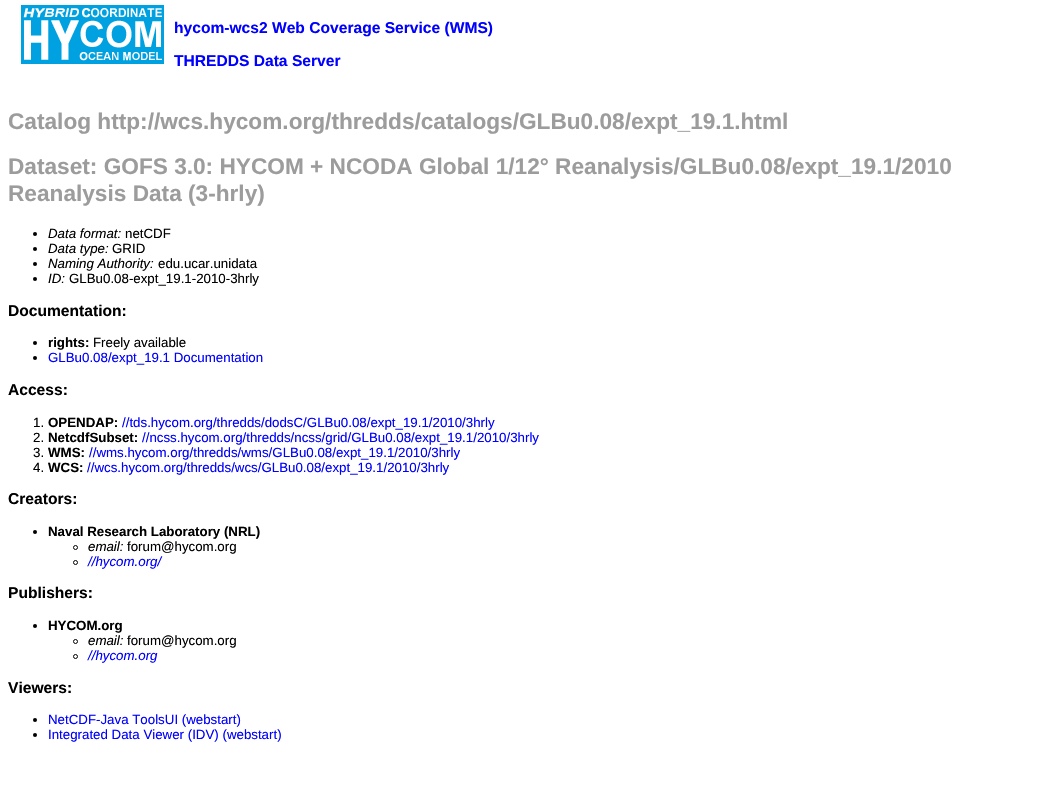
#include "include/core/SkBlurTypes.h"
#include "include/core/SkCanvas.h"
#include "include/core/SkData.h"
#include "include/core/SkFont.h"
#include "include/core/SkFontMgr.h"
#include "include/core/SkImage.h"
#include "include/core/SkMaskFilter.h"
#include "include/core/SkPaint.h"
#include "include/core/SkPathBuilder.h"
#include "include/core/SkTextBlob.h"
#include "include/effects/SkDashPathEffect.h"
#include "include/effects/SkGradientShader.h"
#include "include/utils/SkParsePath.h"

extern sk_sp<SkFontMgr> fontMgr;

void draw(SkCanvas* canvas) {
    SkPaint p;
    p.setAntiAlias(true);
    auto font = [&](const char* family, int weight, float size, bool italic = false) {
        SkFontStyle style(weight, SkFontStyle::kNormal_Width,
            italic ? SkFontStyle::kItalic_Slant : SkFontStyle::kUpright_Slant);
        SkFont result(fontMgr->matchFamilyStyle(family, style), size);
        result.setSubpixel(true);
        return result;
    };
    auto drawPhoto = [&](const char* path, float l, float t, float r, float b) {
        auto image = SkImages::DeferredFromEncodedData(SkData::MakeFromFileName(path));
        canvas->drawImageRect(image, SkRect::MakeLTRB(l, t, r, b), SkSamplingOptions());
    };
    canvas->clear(0xFFFFFFFF);
    drawPhoto("media/1.png", 21, 5, 164, 64);
    auto font1 = font("Liberation Sans", 700, 15.6f);
    p.setColor(0xFF0000FF);
    canvas->drawString("hycom-wcs2 Web Coverage Service (WMS)", 174, 33, font1, p);
    canvas->drawString("THREDDS Data Server", 174, 66, font1, p);
    auto font2 = font("Liberation Sans", 700, 22.65f);
    p.setColor(0xFF9C9C9C);
    {
        const struct { const char* s; float x, y; } items[] = {
            {"Catalog http://wcs.hycom.org/thredds/catalogs/GLBu0.08/expt_19.1.html", 8, 129},
            {"Dataset: GOFS 3.0: HYCOM + NCODA Global 1/12° Reanalysis/GLBu0.08/expt_19.1/2010", 8, 174},
            {"Reanalysis Data (3-hrly)", 8, 201},
        };
        for (auto [s, x, y] : items) {
            canvas->drawString(s, x, y, font2, p);
        }
    }
    p.setColor(0xFF000000);
    canvas->drawCircle(35, 234, 2, p);
    auto font3 = font("Liberation Sans", 400, 13.3f, true);
    canvas->drawString("Data format:", 48, 238, font3, p);
    auto font4 = font("Liberation Sans", 400, 13.3f);
    canvas->drawString("netCDF", 125, 238, font4, p);
    canvas->drawCircle(35, 249, 2, p);
    canvas->drawString("Data type:", 48, 253, font3, p);
    canvas->drawString("GRID", 112, 253, font4, p);
    canvas->drawCircle(35, 264, 2, p);
    canvas->drawString("Naming Authority:", 48, 268, font3, p);
    canvas->drawString("edu.ucar.unidata", 158, 268, font4, p);
    canvas->drawCircle(35, 279, 2, p);
    canvas->drawString("ID:", 48, 283, font3, p);
    canvas->drawString("GLBu0.08-expt_19.1-2010-3hrly", 69, 283, font4, p);
    canvas->drawString("Documentation:", 8, 316, font1, p);
    canvas->drawCircle(35, 343, 2, p);
    auto font5 = font("Liberation Sans", 700, 13.3f);
    canvas->drawString("rights:", 48, 347, font5, p);
    canvas->drawString("Freely available", 93, 347, font4, p);
    canvas->drawCircle(35, 358, 2, p);
    p.setColor(0xFF0000FF);
    canvas->drawString("GLBu0.08/expt_19.1 Documentation", 48, 362, font4, p);
    p.setColor(0xFF000000);
    canvas->drawString("Access:", 8, 395, font1, p);
    canvas->drawString("1.", 33, 427, font4, p);
    canvas->drawString("OPENDAP:", 48, 427, font5, p);
    p.setColor(0xFF0000FF);
    canvas->drawString("//tds.hycom.org/thredds/dodsC/GLBu0.08/expt_19.1/2010/3hrly", 122, 427, font4, p);
    p.setColor(0xFF000000);
    canvas->drawString("2.", 33, 442, font4, p);
    canvas->drawString("NetcdfSubset:", 48, 442, font5, p);
    p.setColor(0xFF0000FF);
    canvas->drawString("//ncss.hycom.org/thredds/ncss/grid/GLBu0.08/expt_19.1/2010/3hrly", 142, 442, font4, p);
    p.setColor(0xFF000000);
    canvas->drawString("3.", 33, 457, font4, p);
    canvas->drawString("WMS:", 48, 457, font5, p);
    p.setColor(0xFF0000FF);
    canvas->drawString("//wms.hycom.org/thredds/wms/GLBu0.08/expt_19.1/2010/3hrly", 89, 457, font4, p);
    p.setColor(0xFF000000);
    canvas->drawString("4.", 33, 472, font4, p);
    canvas->drawString("WCS:", 48, 472, font5, p);
    p.setColor(0xFF0000FF);
    canvas->drawString("//wcs.hycom.org/thredds/wcs/GLBu0.08/expt_19.1/2010/3hrly", 87, 472, font4, p);
    p.setColor(0xFF000000);
    canvas->drawString("Creators:", 8, 504, font1, p);
    canvas->drawCircle(35, 532, 2, p);
    canvas->drawString("Naval Research Laboratory (NRL)", 48, 536, font5, p);
    p.setStyle(SkPaint::kStroke_Style);
    p.setStrokeWidth(1);
    canvas->drawCircle(75.5f, 547.5f, 2, p);
    p.setStyle(SkPaint::kFill_Style);
    canvas->drawString("email:", 88, 551, font3, p);
    canvas->drawString("forum@hycom.org", 127, 551, font4, p);
    p.setStyle(SkPaint::kStroke_Style);
    canvas->drawCircle(75.5f, 562.5f, 2, p);
    p.setStyle(SkPaint::kFill_Style);
    p.setColor(0xFF0000FF);
    canvas->drawString("//hycom.org/", 88, 566, font3, p);
    p.setColor(0xFF000000);
    canvas->drawString("Publishers:", 8, 598, font1, p);
    canvas->drawCircle(35, 626, 2, p);
    canvas->drawString("HYCOM.org", 48, 630, font5, p);
    p.setStyle(SkPaint::kStroke_Style);
    canvas->drawCircle(75.5f, 641.5f, 2, p);
    p.setStyle(SkPaint::kFill_Style);
    canvas->drawString("email:", 88, 645, font3, p);
    canvas->drawString("forum@hycom.org", 127, 645, font4, p);
    p.setStyle(SkPaint::kStroke_Style);
    canvas->drawCircle(75.5f, 656.5f, 2, p);
    p.setStyle(SkPaint::kFill_Style);
    p.setColor(0xFF0000FF);
    canvas->drawString("//hycom.org", 88, 660, font3, p);
    p.setColor(0xFF000000);
    canvas->drawString("Viewers:", 8, 693, font1, p);
    canvas->drawCircle(35, 720, 2, p);
    p.setColor(0xFF0000FF);
    canvas->drawString("NetCDF-Java ToolsUI (webstart)", 48, 724, font4, p);
    p.setColor(0xFF000000);
    canvas->drawCircle(35, 735, 2, p);
    p.setColor(0xFF0000FF);
    canvas->drawString("Integrated Data Viewer (IDV) (webstart)", 48, 739, font4, p);
}
